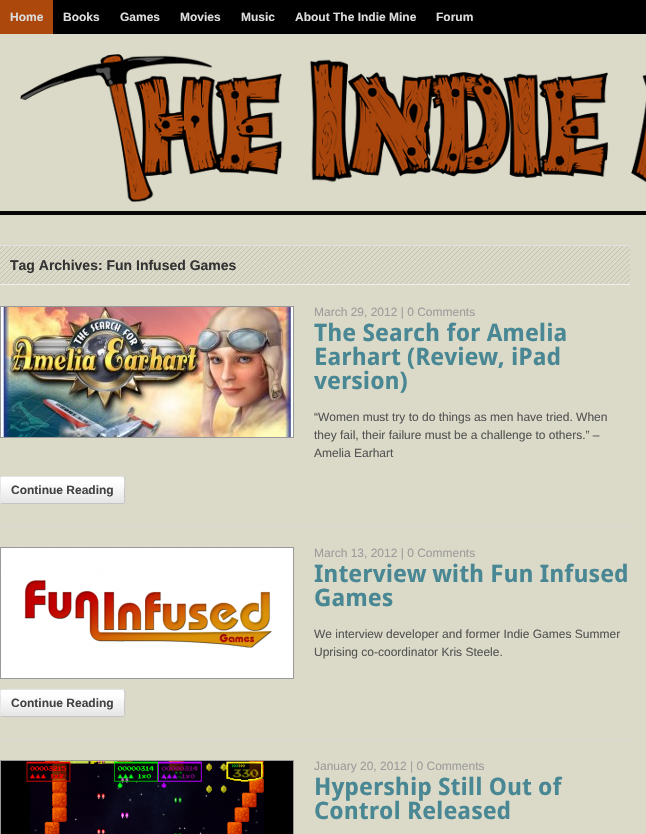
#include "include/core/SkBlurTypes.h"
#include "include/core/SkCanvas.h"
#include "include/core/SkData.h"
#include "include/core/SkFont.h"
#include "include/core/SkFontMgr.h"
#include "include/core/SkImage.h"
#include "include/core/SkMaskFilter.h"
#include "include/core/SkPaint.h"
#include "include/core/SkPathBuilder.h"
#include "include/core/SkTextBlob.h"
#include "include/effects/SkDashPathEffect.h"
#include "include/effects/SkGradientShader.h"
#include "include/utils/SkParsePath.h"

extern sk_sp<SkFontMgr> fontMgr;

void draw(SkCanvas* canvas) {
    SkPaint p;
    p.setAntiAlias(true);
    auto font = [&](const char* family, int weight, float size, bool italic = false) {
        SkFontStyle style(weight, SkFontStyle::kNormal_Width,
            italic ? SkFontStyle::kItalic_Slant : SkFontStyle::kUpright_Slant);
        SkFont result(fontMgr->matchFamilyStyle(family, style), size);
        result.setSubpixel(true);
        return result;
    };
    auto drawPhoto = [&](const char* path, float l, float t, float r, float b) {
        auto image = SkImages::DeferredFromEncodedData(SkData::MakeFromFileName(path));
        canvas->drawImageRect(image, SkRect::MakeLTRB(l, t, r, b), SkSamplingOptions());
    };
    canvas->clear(0xFFDBD9C7);
    p.setColor(0xFF000000);
    canvas->drawRect(SkRect::MakeLTRB(53, 0, 646, 34), p);
    p.setColor(0xFFAC480B);
    canvas->drawRect(SkRect::MakeLTRB(0, 0, 53, 34), p);
    auto font1 = font("Liberation Sans", 700, 12);
    p.setColor(0xFFDDDDDD);
    {
        const struct { const char* s; float x, y; } items[] = {
            {"Home", 10, 21},
            {"Books", 63, 21},
            {"Games", 120, 21},
            {"Movies", 180, 21},
            {"Music", 241, 21},
            {"About The Indie Mine", 295, 21},
            {"Forum", 436, 21},
        };
        for (auto [s, x, y] : items) {
            canvas->drawString(s, x, y, font1, p);
        }
    }
    p.setColor(0xFF060606);
    canvas->drawRect(SkRect::MakeLTRB(0, 211, 646, 215), p);
    drawPhoto("media/1.png", 20, 54, 646, 202);
    drawPhoto("media/2.png", 0, 246, 630, 284);
    p.setColor(0xFFE1E1E1);
    canvas->drawRect(SkRect::MakeLTRB(0, 245, 630, 246), p);
    p.setColor(0xFFEFEFEF);
    canvas->drawRect(SkRect::MakeLTRB(0, 284, 630, 285), p);
    auto font2 = font("Liberation Sans", 700, 14);
    p.setColor(0xFF333333);
    canvas->drawString("Tag Archives: Fun Infused Games", 10, 270, font2, p);
    p.setColor(0xFFD9D9D9);
    canvas->drawRect(SkRect::MakeLTRB(0, 526, 630, 527), p);
    p.setStyle(SkPaint::kStroke_Style);
    p.setStrokeWidth(1);
    p.setColor(0xFF999999);
    canvas->drawRect(SkRect::MakeLTRB(0.5f, 306.5f, 293.5f, 437.5f), p);
    drawPhoto("media/3.png", 1, 307, 293, 437);
    auto font3 = font("Liberation Sans", 400, 12);
    p.setStyle(SkPaint::kFill_Style);
    p.setColor(0xFF9C9C9C);
    canvas->drawString("March 29, 2012 | 0 Comments", 314, 316, font3, p);
    auto font4 = font("Droid Sans", 700, 24);
    p.setColor(0xFF488793);
    {
        const struct { const char* s; float x, y; } items[] = {
            {"The Search for Amelia", 314, 341},
            {"Earhart (Review, iPad", 314, 365},
            {"version)", 314, 389},
        };
        for (auto [s, x, y] : items) {
            canvas->drawString(s, x, y, font4, p);
        }
    }
    p.setColor(0xFF545454);
    {
        const struct { const char* s; float x, y; } items[] = {
            {"“Women must try to do things as men have tried. When", 314, 421},
            {"they fail, their failure must be a challenge to others.” –", 314, 439},
            {"Amelia Earhart", 314, 457},
        };
        for (auto [s, x, y] : items) {
            canvas->drawString(s, x, y, font3, p);
        }
    }
    canvas->save();
    canvas->clipPath(SkPathBuilder().moveTo(2, 476).lineTo(123, 476).cubicTo(124, 476, 125, 477, 125, 478).lineTo(125, 502).cubicTo(125, 503, 124, 504, 123, 504).lineTo(2, 504).cubicTo(1, 504, 0, 503, 0, 502).lineTo(0, 478).cubicTo(0, 477, 1, 476, 2, 476).close().detach(), true);
    {
        const SkColor colors[] = {0xFFFFFFFF, 0xFFE5E5E5};
        const float stops[] = {0.2f, 1};
        const SkPoint ends[] = {{1, 477}, {1, 503}};
        p.setShader(SkGradientShader::MakeLinear(ends, colors, stops, 2, SkTileMode::kClamp));
        p.setAlpha(255);
    }
    canvas->drawRect(SkRect::MakeLTRB(0, 477, 125, 503), p);
    canvas->restore();
    p.setStyle(SkPaint::kStroke_Style);
    p.setShader(nullptr);
    p.setColor(0xFFC4C4C4);
    canvas->drawPath(SkPathBuilder().moveTo(124, 477).cubicTo(125.5f, 478.5f, 124.5f, 488, 124.5f, 490).lineTo(124.5f, 498).cubicTo(124.5f, 498.5f, 125.5f, 503.5f, 123, 503.5f).lineTo(2, 503.5f).lineTo(1, 503).detach(), p);
    p.setColor(0xFFE4E4E4);
    canvas->drawPath(SkPathBuilder().moveTo(1, 503).cubicTo(-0.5f, 501.5f, 0.5f, 492, 0.5f, 490).lineTo(0.5f, 482).cubicTo(0.5f, 481.5f, -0.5f, 476.5f, 2, 476.5f).lineTo(123, 476.5f).lineTo(124, 477).detach(), p);
    p.setStyle(SkPaint::kFill_Style);
    p.setColor(0xFF424242);
    canvas->drawString("Continue Reading", 11, 494, font1, p);
    p.setColor(0xFFD9D9D9);
    canvas->drawRect(SkRect::MakeLTRB(0, 739, 630, 740), p);
    p.setStyle(SkPaint::kStroke_Style);
    p.setColor(0xFF999999);
    canvas->drawRect(SkRect::MakeLTRB(0.5f, 547.5f, 293.5f, 678.5f), p);
    drawPhoto("media/4.png", 1, 548, 293, 678);
    p.setStyle(SkPaint::kFill_Style);
    p.setColor(0xFF9C9C9C);
    canvas->drawString("March 13, 2012 | 0 Comments", 314, 557, font3, p);
    p.setColor(0xFF488793);
    canvas->drawString("Interview with Fun Infused", 314, 582, font4, p);
    canvas->drawString("Games", 314, 606, font4, p);
    p.setColor(0xFF545454);
    canvas->drawString("We interview developer and former Indie Games Summer", 314, 638, font3, p);
    canvas->drawString("Uprising co-coordinator Kris Steele.", 314, 656, font3, p);
    canvas->save();
    canvas->clipPath(SkPathBuilder().moveTo(2, 689).lineTo(123, 689).cubicTo(124, 689, 125, 690, 125, 691).lineTo(125, 715).cubicTo(125, 716, 124, 717, 123, 717).lineTo(2, 717).cubicTo(1, 717, 0, 716, 0, 715).lineTo(0, 691).cubicTo(0, 690, 1, 689, 2, 689).close().detach(), true);
    {
        const SkColor colors[] = {0xFFFFFFFF, 0xFFE5E5E5};
        const float stops[] = {0.2f, 1};
        const SkPoint ends[] = {{1, 690}, {1, 716}};
        p.setShader(SkGradientShader::MakeLinear(ends, colors, stops, 2, SkTileMode::kClamp));
        p.setAlpha(255);
    }
    canvas->drawRect(SkRect::MakeLTRB(0, 690, 125, 716), p);
    canvas->restore();
    p.setStyle(SkPaint::kStroke_Style);
    p.setShader(nullptr);
    p.setColor(0xFFC4C4C4);
    canvas->drawPath(SkPathBuilder().moveTo(124, 690).cubicTo(125.5f, 691.5f, 124.5f, 701, 124.5f, 703).lineTo(124.5f, 711).cubicTo(124.5f, 711.5f, 125.5f, 716.5f, 123, 716.5f).lineTo(2, 716.5f).lineTo(1, 716).detach(), p);
    p.setColor(0xFFE4E4E4);
    canvas->drawPath(SkPathBuilder().moveTo(1, 716).cubicTo(-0.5f, 714.5f, 0.5f, 705, 0.5f, 703).lineTo(0.5f, 695).cubicTo(0.5f, 694.5f, -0.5f, 689.5f, 2, 689.5f).lineTo(123, 689.5f).lineTo(124, 690).detach(), p);
    p.setStyle(SkPaint::kFill_Style);
    p.setColor(0xFF424242);
    canvas->drawString("Continue Reading", 11, 707, font1, p);
    p.setStyle(SkPaint::kStroke_Style);
    p.setColor(0xFF999999);
    canvas->drawRect(SkRect::MakeLTRB(0.5f, 760.5f, 293.5f, 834.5f), p);
    drawPhoto("media/5.png", 1, 761, 293, 834);
    p.setStyle(SkPaint::kFill_Style);
    p.setColor(0xFF9C9C9C);
    canvas->drawString("January 20, 2012 | 0 Comments", 314, 770, font3, p);
    p.setColor(0xFF488793);
    canvas->drawString("Hypership Still Out of", 314, 795, font4, p);
    canvas->drawString("Control Released", 314, 819, font4, p);
}
